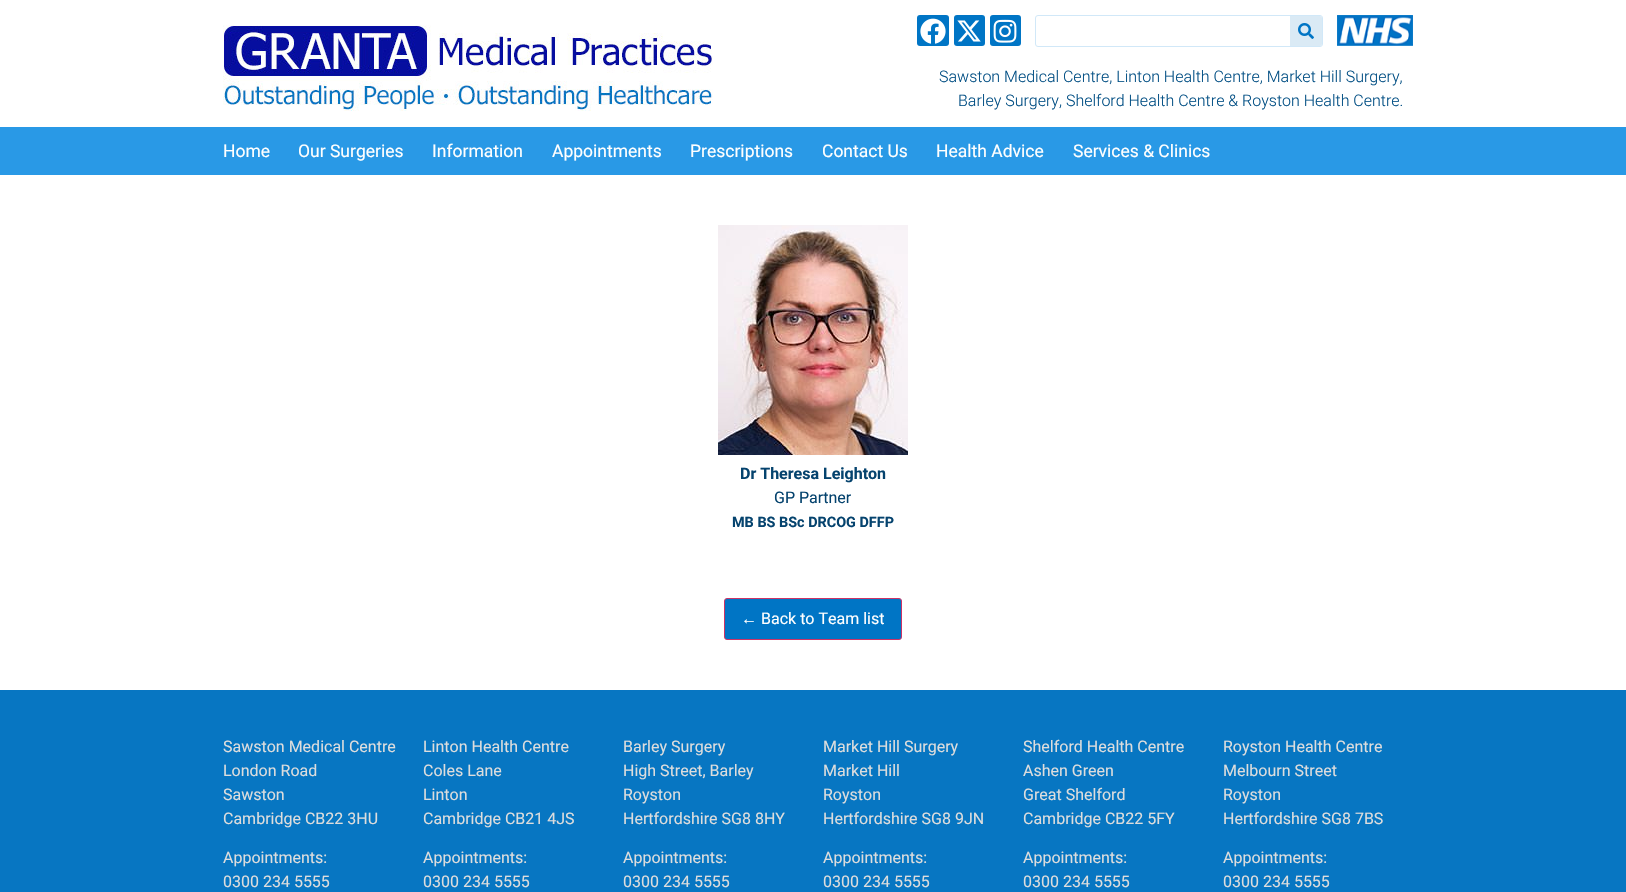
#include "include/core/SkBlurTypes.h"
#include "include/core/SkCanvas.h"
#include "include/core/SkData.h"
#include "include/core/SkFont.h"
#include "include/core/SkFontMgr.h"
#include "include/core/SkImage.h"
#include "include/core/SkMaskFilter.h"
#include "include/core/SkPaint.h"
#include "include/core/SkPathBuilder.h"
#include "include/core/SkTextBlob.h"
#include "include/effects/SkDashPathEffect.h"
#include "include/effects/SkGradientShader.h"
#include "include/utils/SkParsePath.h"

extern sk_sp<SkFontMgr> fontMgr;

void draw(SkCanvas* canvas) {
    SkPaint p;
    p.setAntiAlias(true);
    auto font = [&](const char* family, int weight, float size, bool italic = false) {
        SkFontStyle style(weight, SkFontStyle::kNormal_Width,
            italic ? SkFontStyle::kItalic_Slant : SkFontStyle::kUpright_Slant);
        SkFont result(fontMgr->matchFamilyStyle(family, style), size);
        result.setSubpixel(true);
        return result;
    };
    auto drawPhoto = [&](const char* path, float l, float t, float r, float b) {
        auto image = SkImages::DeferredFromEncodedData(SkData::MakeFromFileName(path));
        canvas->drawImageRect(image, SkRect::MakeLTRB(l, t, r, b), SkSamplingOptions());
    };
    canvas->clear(0xFFFFFFFF);
    drawPhoto("media/1.png", 223, 25, 713, 111);
    p.setColor(0xFF0075C5);
    canvas->drawRoundRect(SkRect::MakeLTRB(917, 15, 949, 46), 3, 3, p);
    drawPhoto("media/2.png", 920, 18, 946, 44);
    canvas->drawRoundRect(SkRect::MakeLTRB(954, 15, 985, 46), 3, 3, p);
    drawPhoto("media/3.png", 957, 20, 981, 42);
    canvas->drawRoundRect(SkRect::MakeLTRB(990, 15, 1021, 46), 3, 3, p);
    drawPhoto("media/4.png", 993, 19, 1017, 43);
    p.setStyle(SkPaint::kStroke_Style);
    p.setStrokeWidth(1);
    p.setColor(0xFFD1E8F8);
    canvas->drawRoundRect(SkRect::MakeLTRB(1035.5f, 15.5f, 1322.5f, 46.5f), 2.5f, 2.5f, p);
    p.setStyle(SkPaint::kFill_Style);
    p.setColor(0xFFDAEAF5);
    canvas->drawPath(SkPathBuilder().moveTo(1290, 16).lineTo(1320, 16).cubicTo(1321, 16, 1322, 17, 1322, 18).lineTo(1322, 44).cubicTo(1322, 45, 1321, 46, 1320, 46).lineTo(1290, 46).close().detach(), p);
    drawPhoto("media/5.png", 1298, 23, 1314, 39);
    drawPhoto("media/6.png", 1337, 15, 1413, 46);
    auto font1 = font("Roboto", 300, 16);
    p.setColor(0xFF024F84);
    canvas->drawString("Sawston Medical Centre, Linton Health Centre, Market Hill Surgery,", 939, 82, font1, p);
    canvas->drawString("Barley Surgery, Shelford Health Centre & Royston Health Centre.", 958, 106, font1, p);
    p.setColor(0xFF2999E6);
    canvas->drawRect(SkRect::MakeLTRB(0, 127, 1626, 175), p);
    auto font2 = font("Roboto", 400, 17.5f);
    p.setColor(0xFFFFFFFF);
    {
        const struct { const char* s; float x, y; } items[] = {
            {"Home", 223, 157},
            {"Our Surgeries", 298, 157},
            {"Information", 432, 157},
            {"Appointments", 552, 157},
            {"Prescriptions", 690, 157},
            {"Contact Us", 822, 157},
            {"Health Advice", 936, 157},
            {"Services & Clinics", 1073, 157},
        };
        for (auto [s, x, y] : items) {
            canvas->drawString(s, x, y, font2, p);
        }
    }
    drawPhoto("media/7.png", 718, 225, 908, 455);
    auto font3 = font("Roboto", 700, 16);
    p.setColor(0xFF05436E);
    canvas->drawString("Dr Theresa Leighton", 740, 479, font3, p);
    auto font4 = font("Roboto", 400, 16);
    canvas->drawString("GP Partner", 774, 503, font4, p);
    auto font5 = font("Roboto", 700, 14.4f);
    canvas->drawString("MB BS BSc DRCOG DFFP", 732, 527, font5, p);
    p.setColor(0xFF0075C5);
    canvas->drawRoundRect(SkRect::MakeLTRB(724.5f, 598.5f, 901.5f, 639.5f), 2.5f, 2.5f, p);
    p.setStyle(SkPaint::kStroke_Style);
    p.setColor(0xFFCC3366);
    canvas->drawRoundRect(SkRect::MakeLTRB(724.5f, 598.5f, 901.5f, 639.5f), 2.5f, 2.5f, p);
    auto font6 = font("Liberation Sans", 400, 16);
    p.setStyle(SkPaint::kFill_Style);
    p.setColor(0xFFFFFFFF);
    canvas->drawString("←", 741, 624, font6, p);
    canvas->drawString("Back to Team list", 761, 624, font4, p);
    p.setColor(0xFF0776C2);
    canvas->drawRect(SkRect::MakeLTRB(0, 690, 1626, 892), p);
    p.setColor(0xFFDDDDDD);
    {
        const struct { const char* s; float x, y; } items[] = {
            {"Sawston Medical Centre", 223, 752},
            {"London Road", 223, 776},
            {"Sawston", 223, 800},
            {"Cambridge CB22 3HU", 223, 824},
            {"Appointments:", 223, 863},
            {"0300 234 5555", 223, 887},
            {"Linton Health Centre", 423, 752},
            {"Coles Lane", 423, 776},
            {"Linton", 423, 800},
            {"Cambridge CB21 4JS", 423, 824},
            {"Appointments:", 423, 863},
            {"0300 234 5555", 423, 887},
            {"Barley Surgery", 623, 752},
            {"High Street, Barley", 623, 776},
            {"Royston", 623, 800},
            {"Hertfordshire SG8 8HY", 623, 824},
            {"Appointments:", 623, 863},
            {"0300 234 5555", 623, 887},
            {"Market Hill Surgery", 823, 752},
            {"Market Hill", 823, 776},
            {"Royston", 823, 800},
            {"Hertfordshire SG8 9JN", 823, 824},
            {"Appointments:", 823, 863},
            {"0300 234 5555", 823, 887},
            {"Shelford Health Centre", 1023, 752},
            {"Ashen Green", 1023, 776},
            {"Great Shelford", 1023, 800},
            {"Cambridge CB22 5FY", 1023, 824},
            {"Appointments:", 1023, 863},
            {"0300 234 5555", 1023, 887},
            {"Royston Health Centre", 1223, 752},
            {"Melbourn Street", 1223, 776},
            {"Royston", 1223, 800},
            {"Hertfordshire SG8 7BS", 1223, 824},
            {"Appointments:", 1223, 863},
            {"0300 234 5555", 1223, 887},
        };
        for (auto [s, x, y] : items) {
            canvas->drawString(s, x, y, font4, p);
        }
    }
}
